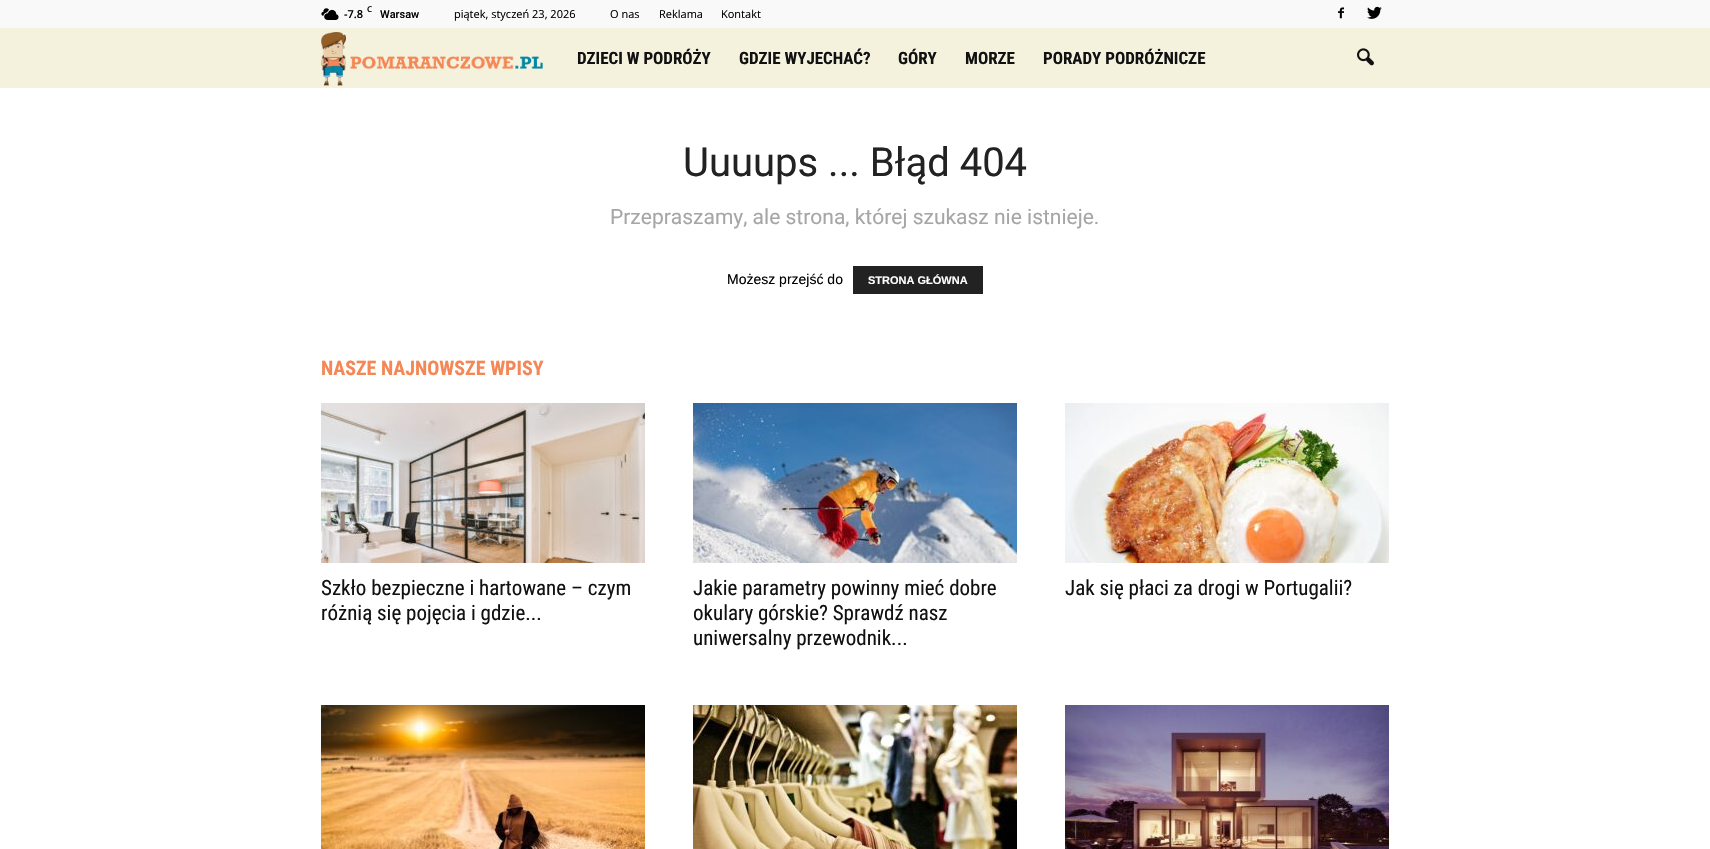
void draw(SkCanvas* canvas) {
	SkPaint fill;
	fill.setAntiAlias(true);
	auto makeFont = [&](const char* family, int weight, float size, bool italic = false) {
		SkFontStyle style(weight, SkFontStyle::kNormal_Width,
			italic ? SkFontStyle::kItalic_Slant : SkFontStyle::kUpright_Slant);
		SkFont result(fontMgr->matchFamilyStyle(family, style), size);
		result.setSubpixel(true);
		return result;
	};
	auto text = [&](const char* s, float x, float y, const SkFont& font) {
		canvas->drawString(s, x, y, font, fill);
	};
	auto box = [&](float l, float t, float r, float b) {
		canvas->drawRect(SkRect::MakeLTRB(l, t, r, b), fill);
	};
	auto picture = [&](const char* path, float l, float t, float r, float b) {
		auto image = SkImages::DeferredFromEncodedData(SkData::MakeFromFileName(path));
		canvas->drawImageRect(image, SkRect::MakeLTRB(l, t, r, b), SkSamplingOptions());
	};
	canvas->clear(0xFFFFFFFF);
	fill.setColor(0xFFF9F9F9);
	box(0, 0, 1710, 28);
	picture("image0.png", 321, 8, 339, 20);
	picture("image1.png", 1338, 7, 1344, 19);
	picture("image2.png", 1367, 6, 1382, 19);
	fill.setColor(0xFFF4F1DD);
	box(0, 28, 1710, 88);
	picture("image3.png", 321, 32, 543, 86);
	picture("image4.png", 1357, 48, 1374, 66);
	fill.setColor(0xFF222222);
	box(853, 266, 983, 294);
	picture("image5.png", 321, 403, 645, 563);
	picture("image6.png", 693, 403, 1017, 563);
	picture("image7.png", 1065, 403, 1389, 563);
	picture("image8.png", 321, 705, 645, 849);
	picture("image9.png", 693, 705, 1017, 849);
	picture("image10.png", 1065, 705, 1389, 849);
	auto font1 = makeFont("Open Sans", 600, 11);
	fill.setColor(0xFF000000);
	text("-7.8", 344, 18, font1);
	auto font2 = makeFont("Open Sans", 600, 8);
	text("C", 367, 12, font2);
	auto font3 = makeFont("Roboto", 500, 11);
	text("Warsaw", 380, 18, font3);
	auto font4 = makeFont("Open Sans", 400, 11);
	text("piątek, styczeń 23, 2026", 454, 18, font4);
	text("O nas", 610, 18, font4);
	text("Reklama", 659, 18, font4);
	text("Kontakt", 721, 18, font4);
	auto font5 = makeFont("Roboto Condensed", 700, 17);
	fill.setColor(0xFF111111);
	text("DZIECI W PODRÓŻY", 577, 64, font5);
	text("GDZIE WYJECHAĆ?", 739, 64, font5);
	text("GÓRY", 898, 64, font5);
	text("MORZE", 965, 64, font5);
	text("PORADY PODRÓŻNICZE", 1043, 64, font5);
	auto font6 = makeFont("Roboto", 400, 40);
	fill.setColor(0xFF222222);
	text("Uuuups ... Błąd 404", 683, 176, font6);
	auto font7 = makeFont("Roboto", 400, 21);
	fill.setColor(0xFFA6A6A6);
	text("Przepraszamy, ale strona, której szukasz nie istnieje.", 610, 224, font7);
	auto font8 = makeFont("Liberation Sans", 400, 14);
	fill.setColor(0xFF000000);
	text("Możesz przejść do", 727, 284, font8);
	auto font9 = makeFont("Liberation Sans", 700, 11);
	fill.setColor(0xFFFFFFFF);
	text("STRONA GŁÓWNA", 868, 284, font9);
	auto font10 = makeFont("Roboto Condensed", 700, 20);
	fill.setColor(0xFFF48755);
	text("NASZE NAJNOWSZE WPISY", 321, 375, font10);
	auto font11 = makeFont("Roboto Condensed", 400, 21);
	fill.setColor(0xFF111111);
	text("Szkło bezpieczne i hartowane – czym", 321, 595, font11);
	text("różnią się pojęcia i gdzie...", 321, 620, font11);
	text("Jakie parametry powinny mieć dobre", 693, 595, font11);
	text("okulary górskie? Sprawdź nasz", 693, 620, font11);
	text("uniwersalny przewodnik...", 693, 645, font11);
	text("Jak się płaci za drogi w Portugalii?", 1065, 595, font11);
}
